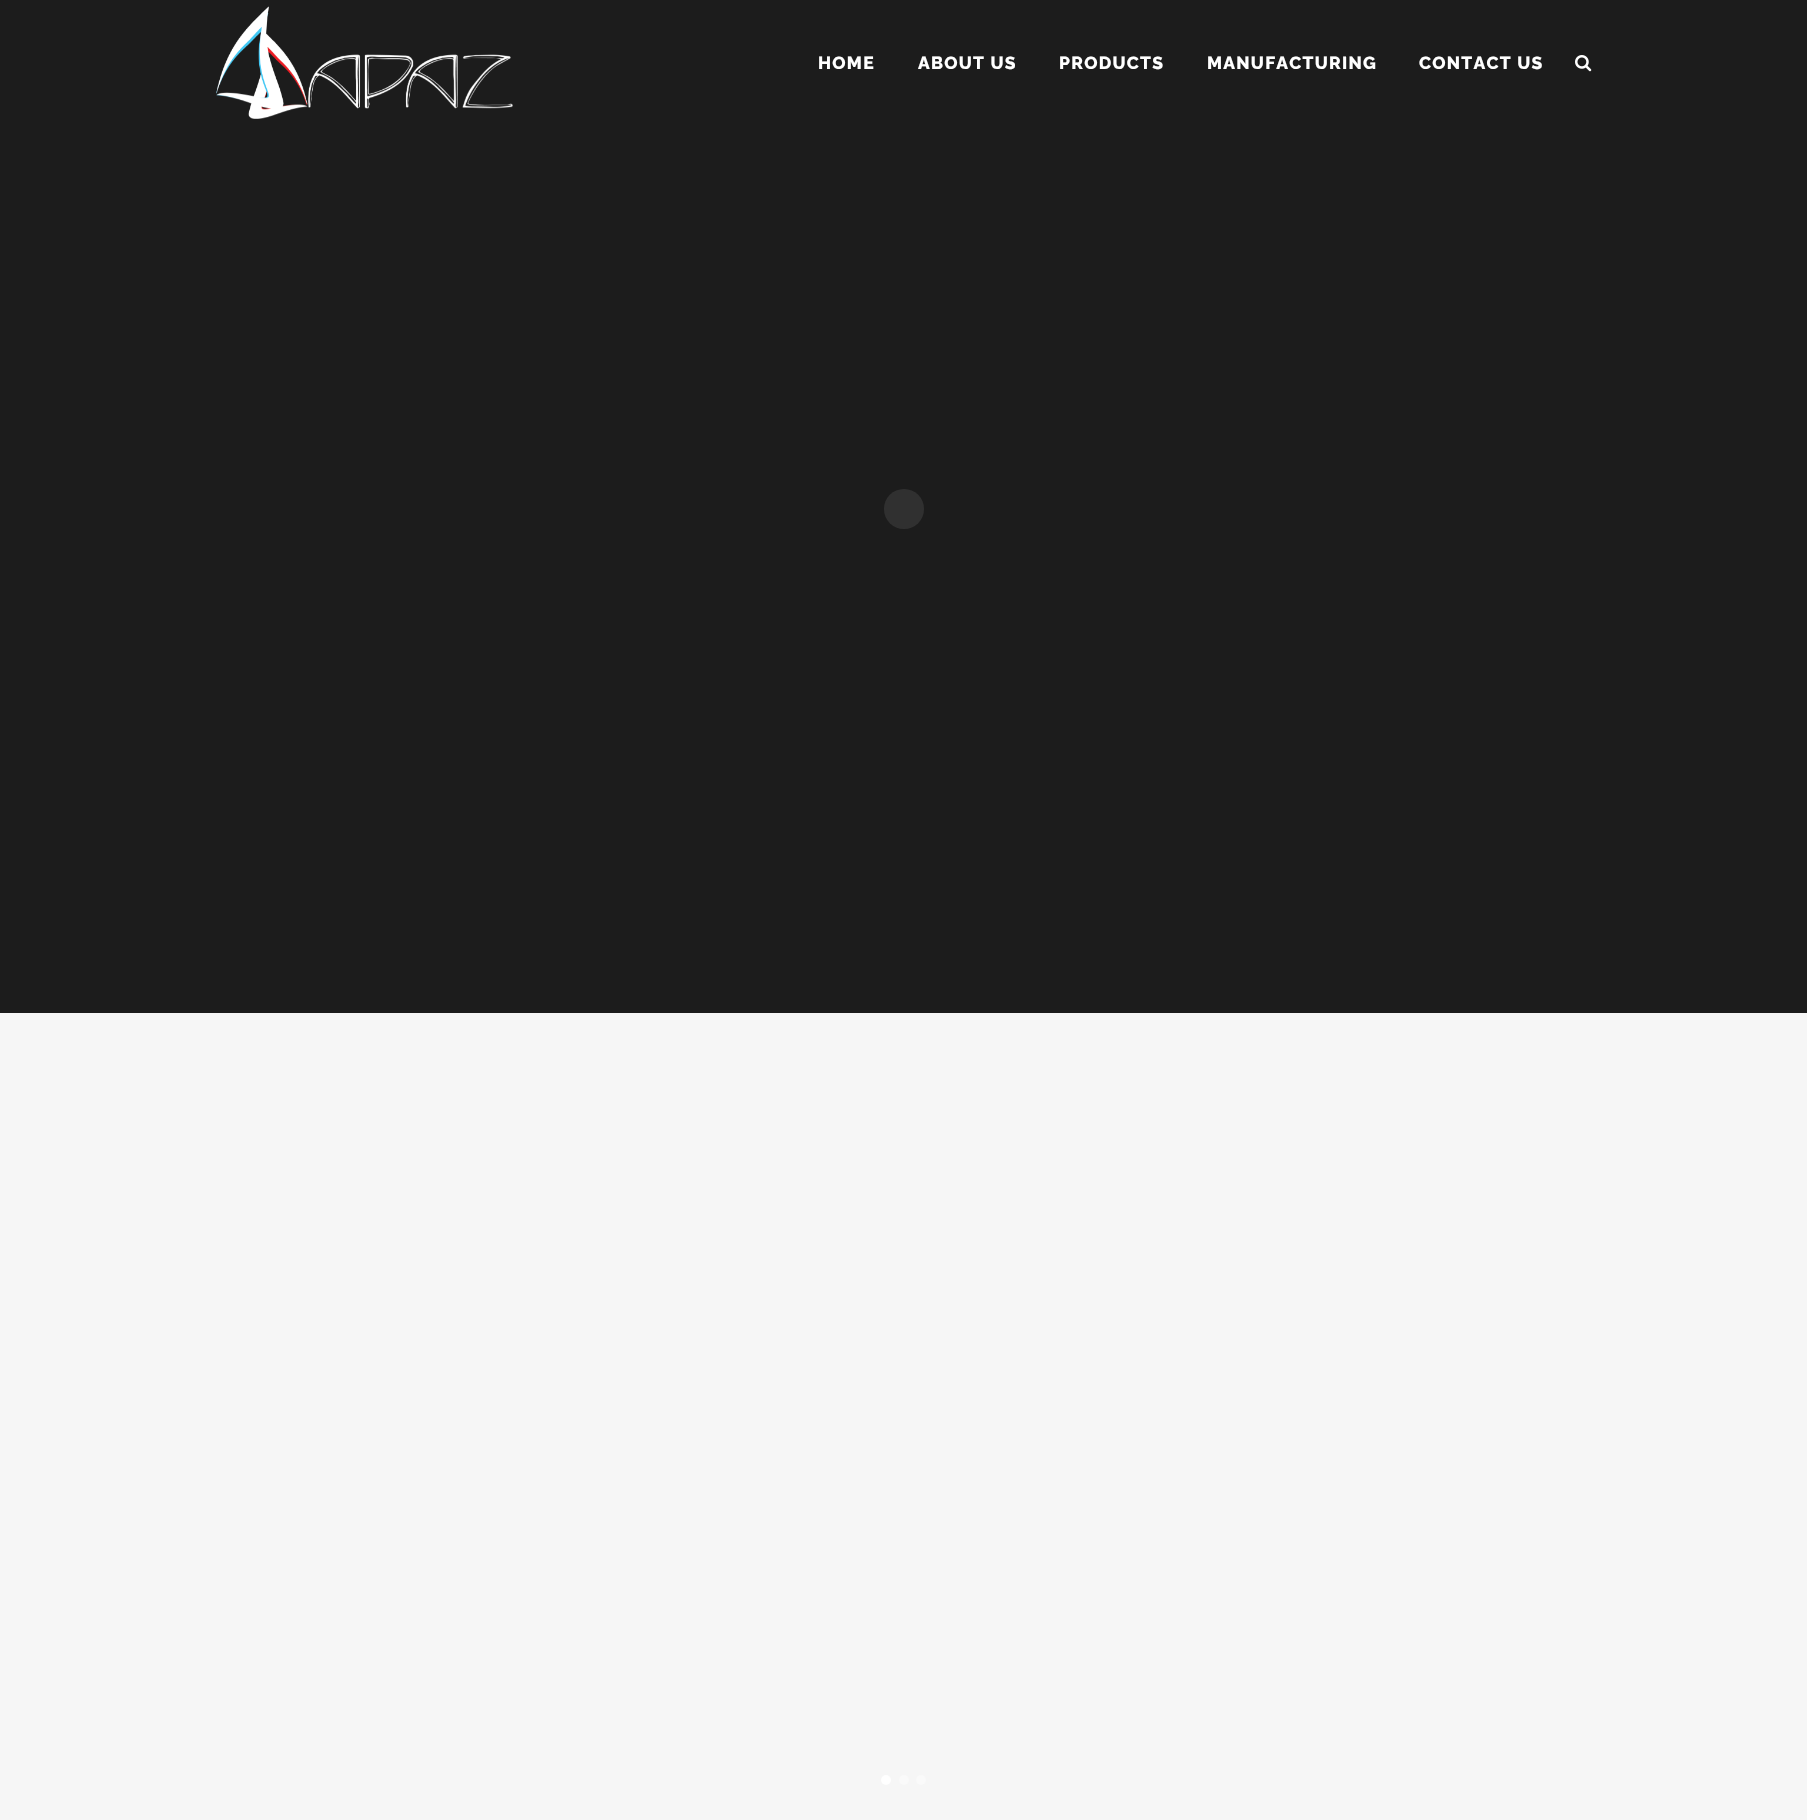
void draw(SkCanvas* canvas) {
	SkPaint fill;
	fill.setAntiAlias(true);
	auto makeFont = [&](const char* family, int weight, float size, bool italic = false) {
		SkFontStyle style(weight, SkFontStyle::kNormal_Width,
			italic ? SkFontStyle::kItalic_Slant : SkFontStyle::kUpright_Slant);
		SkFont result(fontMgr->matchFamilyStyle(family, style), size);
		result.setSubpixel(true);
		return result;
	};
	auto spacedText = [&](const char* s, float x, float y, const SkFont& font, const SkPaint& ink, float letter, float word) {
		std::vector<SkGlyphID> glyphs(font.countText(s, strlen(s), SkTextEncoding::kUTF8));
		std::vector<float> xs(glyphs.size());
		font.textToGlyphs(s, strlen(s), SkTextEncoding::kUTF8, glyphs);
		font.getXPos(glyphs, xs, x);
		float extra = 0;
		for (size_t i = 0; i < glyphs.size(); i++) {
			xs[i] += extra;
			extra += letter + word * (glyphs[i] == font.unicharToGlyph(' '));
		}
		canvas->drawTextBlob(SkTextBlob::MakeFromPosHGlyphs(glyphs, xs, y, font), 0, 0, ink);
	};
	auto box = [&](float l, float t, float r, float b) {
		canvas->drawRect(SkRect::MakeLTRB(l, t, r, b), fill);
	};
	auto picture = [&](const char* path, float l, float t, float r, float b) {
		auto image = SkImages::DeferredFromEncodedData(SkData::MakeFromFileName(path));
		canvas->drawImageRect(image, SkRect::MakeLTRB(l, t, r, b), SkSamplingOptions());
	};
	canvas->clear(0xFFF6F6F6);
	fill.setColor(0xFF1C1C1C);
	box(0, 0, 1807, 1013);
	fill.setColor(0xFF303030);
	canvas->drawCircle(904, 509, 20, fill);
	fill.setColor(0xFFFFFFFF);
	canvas->drawCircle(886, 1780, 5, fill);
	fill.setColor(0xFFFAFAFA);
	canvas->drawCircle(904, 1780, 5, fill);
	canvas->drawCircle(921, 1780, 5, fill);
	picture("image0.png", 216, 6, 513, 119);
	picture("image1.png", 1575, 55, 1592, 72);
	auto font1 = makeFont("Raleway", 800, 17.5f);
	fill.setColor(0xFFFFFFFF);
	spacedText("HOME", 818, 69, font1, fill, 1.25f, 0);
	spacedText("ABOUT US", 918, 69, font1, fill, 1.25f, 0);
	spacedText("PRODUCTS", 1059, 69, font1, fill, 1.25f, 0);
	spacedText("MANUFACTURING", 1207, 69, font1, fill, 1.25f, 0);
	spacedText("CONTACT US", 1419, 69, font1, fill, 1.25f, 0);
}
